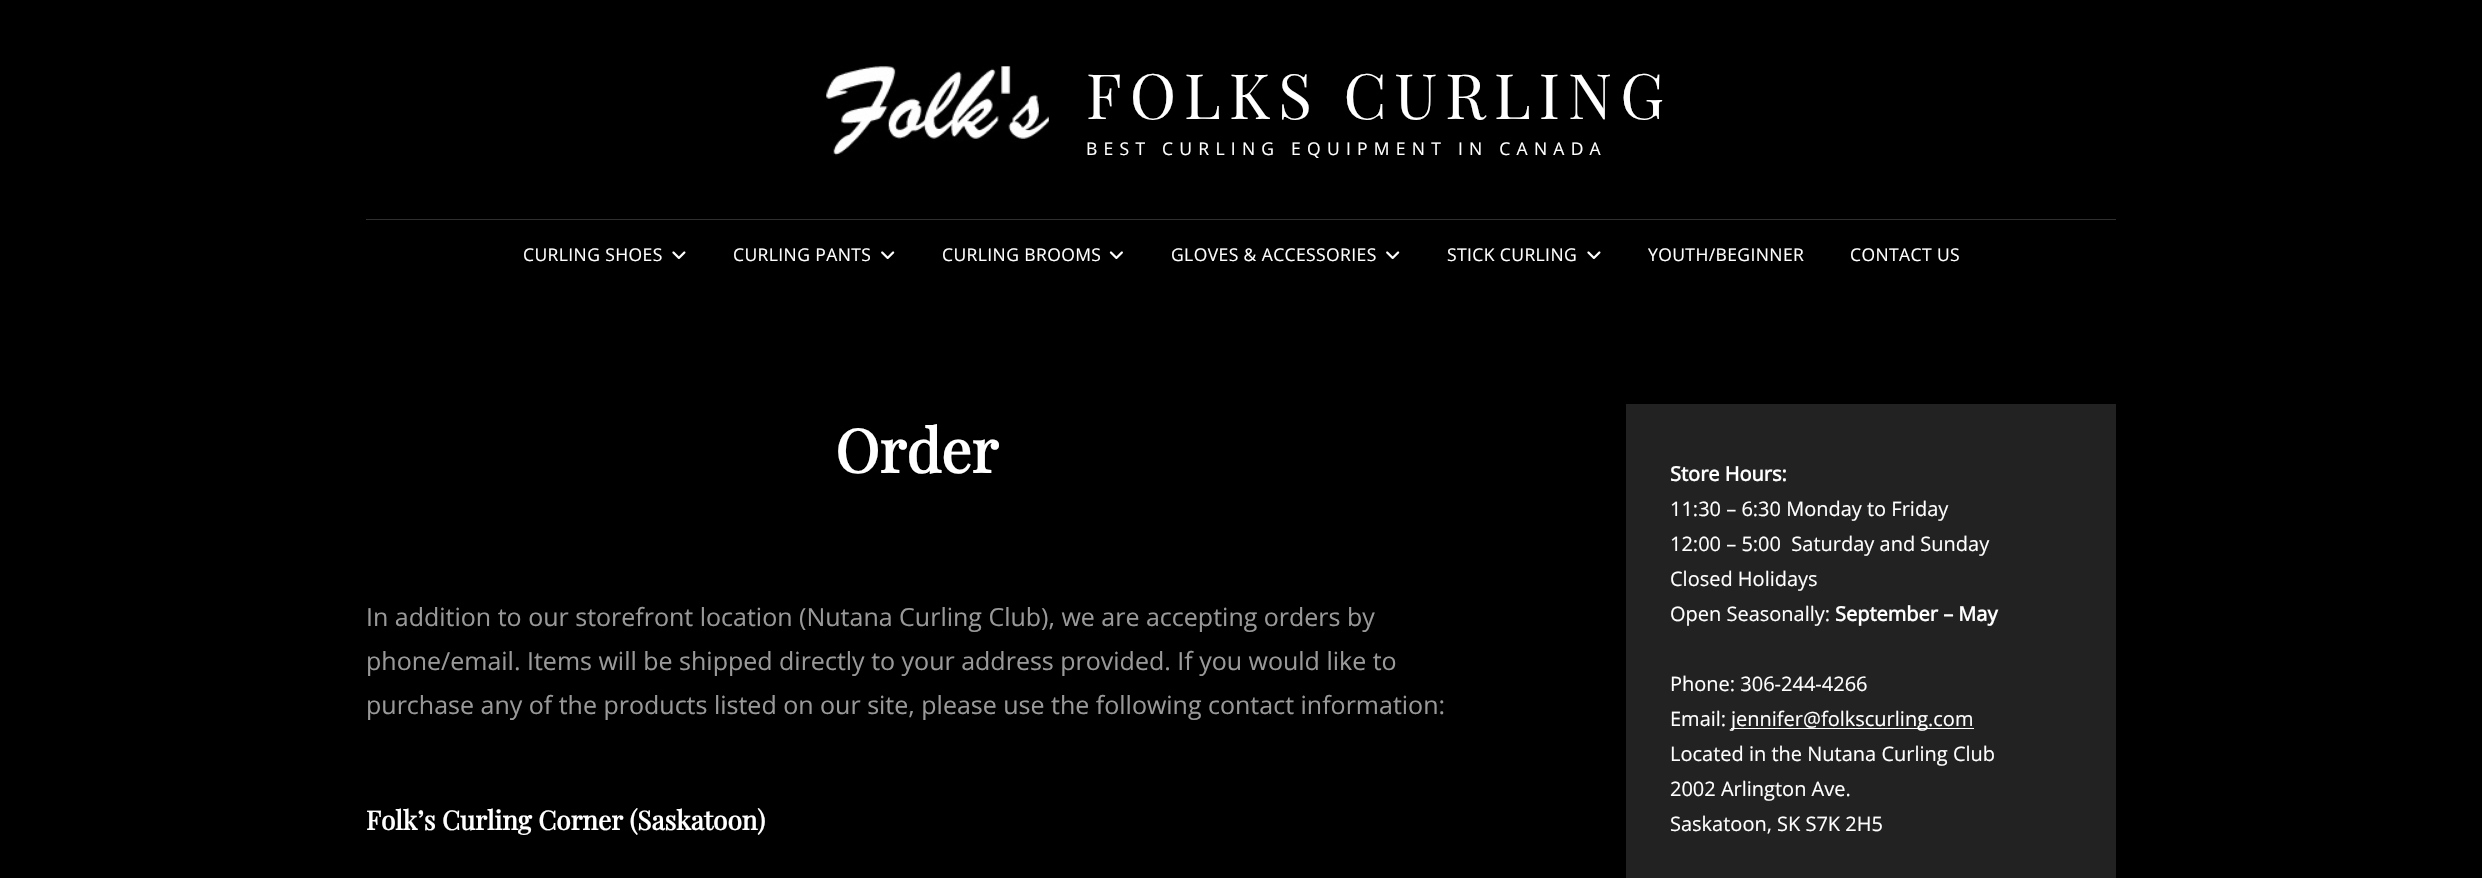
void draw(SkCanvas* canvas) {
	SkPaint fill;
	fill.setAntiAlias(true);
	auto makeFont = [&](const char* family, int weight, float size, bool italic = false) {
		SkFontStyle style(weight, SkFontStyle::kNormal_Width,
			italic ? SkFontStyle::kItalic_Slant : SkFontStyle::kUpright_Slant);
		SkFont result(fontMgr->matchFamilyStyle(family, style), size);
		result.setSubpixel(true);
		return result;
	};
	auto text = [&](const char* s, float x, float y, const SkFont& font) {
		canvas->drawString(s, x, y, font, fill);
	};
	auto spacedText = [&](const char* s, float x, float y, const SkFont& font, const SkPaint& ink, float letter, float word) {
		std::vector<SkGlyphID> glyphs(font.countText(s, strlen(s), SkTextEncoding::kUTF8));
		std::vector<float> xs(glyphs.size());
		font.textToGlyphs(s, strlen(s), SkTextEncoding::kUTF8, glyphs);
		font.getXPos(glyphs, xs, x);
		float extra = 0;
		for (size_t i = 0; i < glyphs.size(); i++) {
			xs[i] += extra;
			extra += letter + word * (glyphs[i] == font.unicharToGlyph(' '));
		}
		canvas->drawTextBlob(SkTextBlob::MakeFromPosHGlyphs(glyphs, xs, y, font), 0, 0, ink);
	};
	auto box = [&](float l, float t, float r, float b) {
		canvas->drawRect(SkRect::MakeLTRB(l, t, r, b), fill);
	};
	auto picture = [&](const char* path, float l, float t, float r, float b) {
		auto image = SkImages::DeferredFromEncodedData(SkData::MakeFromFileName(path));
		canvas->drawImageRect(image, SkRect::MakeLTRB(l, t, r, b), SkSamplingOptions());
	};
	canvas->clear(0xFF000000);
	picture("image0.png", 826, 66, 1049, 156);
	fill.setColor(0xFF2F2F2F);
	box(366, 219, 2116, 220);
	picture("image1.png", 672, 251, 686, 259);
	picture("image2.png", 881, 251, 895, 259);
	picture("image3.png", 1109, 251, 1123, 259);
	picture("image2.png", 1386, 251, 1400, 259);
	picture("image1.png", 1587, 251, 1601, 259);
	fill.setColor(0xFF222222);
	box(1626, 404, 2116, 878);
	fill.setColor(0xFFFFFFFF);
	box(1731, 728, 1974, 729);
	auto font1 = makeFont("Playfair Display", 400, 62.5f);
	spacedText("FOLKS CURLING", 1086, 119, font1, fill, 8.1f, 0);
	auto font2 = makeFont("Open Sans", 400, 17.5f);
	spacedText("BEST CURLING EQUIPMENT IN CANADA", 1086, 155, font2, fill, 6.25f, 0);
	spacedText("CURLING SHOES", 523, 261, font2, fill, 0.4f, 0);
	spacedText("CURLING PANTS", 733, 261, font2, fill, 0.4f, 0);
	spacedText("CURLING BROOMS", 942, 261, font2, fill, 0.4f, 0);
	spacedText("GLOVES & ACCESSORIES", 1171, 261, font2, fill, 0.4f, 0);
	spacedText("STICK CURLING", 1447, 261, font2, fill, 0.4f, 0);
	spacedText("YOUTH/BEGINNER", 1648, 261, font2, fill, 0.4f, 0);
	spacedText("CONTACT US", 1850, 261, font2, fill, 0.4f, 0);
	auto font3 = makeFont("Playfair Display", 700, 60);
	text("Order", 835, 473, font3);
	auto font4 = makeFont("Open Sans", 400, 25);
	fill.setColor(0xFF999999);
	text("In addition to our storefront location (Nutana Curling Club), we are accepting orders by", 366, 626, font4);
	text("phone/email. Items will be shipped directly to your address provided. If you would like to", 366, 670, font4);
	text("purchase any of the products listed on our site, please use the following contact information:", 366, 714, font4);
	auto font5 = makeFont("Playfair Display", 700, 26.25f);
	fill.setColor(0xFFFFFFFF);
	text("Folk’s Curling Corner (Saskatoon)", 366, 830, font5);
	auto font6 = makeFont("Open Sans", 700, 20);
	text("Store Hours:", 1670, 481, font6);
	auto font7 = makeFont("Open Sans", 400, 20);
	text("11:30 – 6:30 Monday to Friday", 1670, 516, font7);
	text("12:00 – 5:00  Saturday and Sunday", 1670, 551, font7);
	text("Closed Holidays", 1670, 586, font7);
	text("Open Seasonally:", 1670, 621, font7);
	text("September – May", 1835, 621, font6);
	text("Phone: 306-244-4266", 1670, 691, font7);
	text("Email:", 1670, 726, font7);
	text("jennifer@folkscurling.com", 1731, 726, font7);
	text("Located in the Nutana Curling Club", 1670, 761, font7);
	text("2002 Arlington Ave.", 1670, 796, font7);
	text("Saskatoon, SK S7K 2H5", 1670, 831, font7);
}
